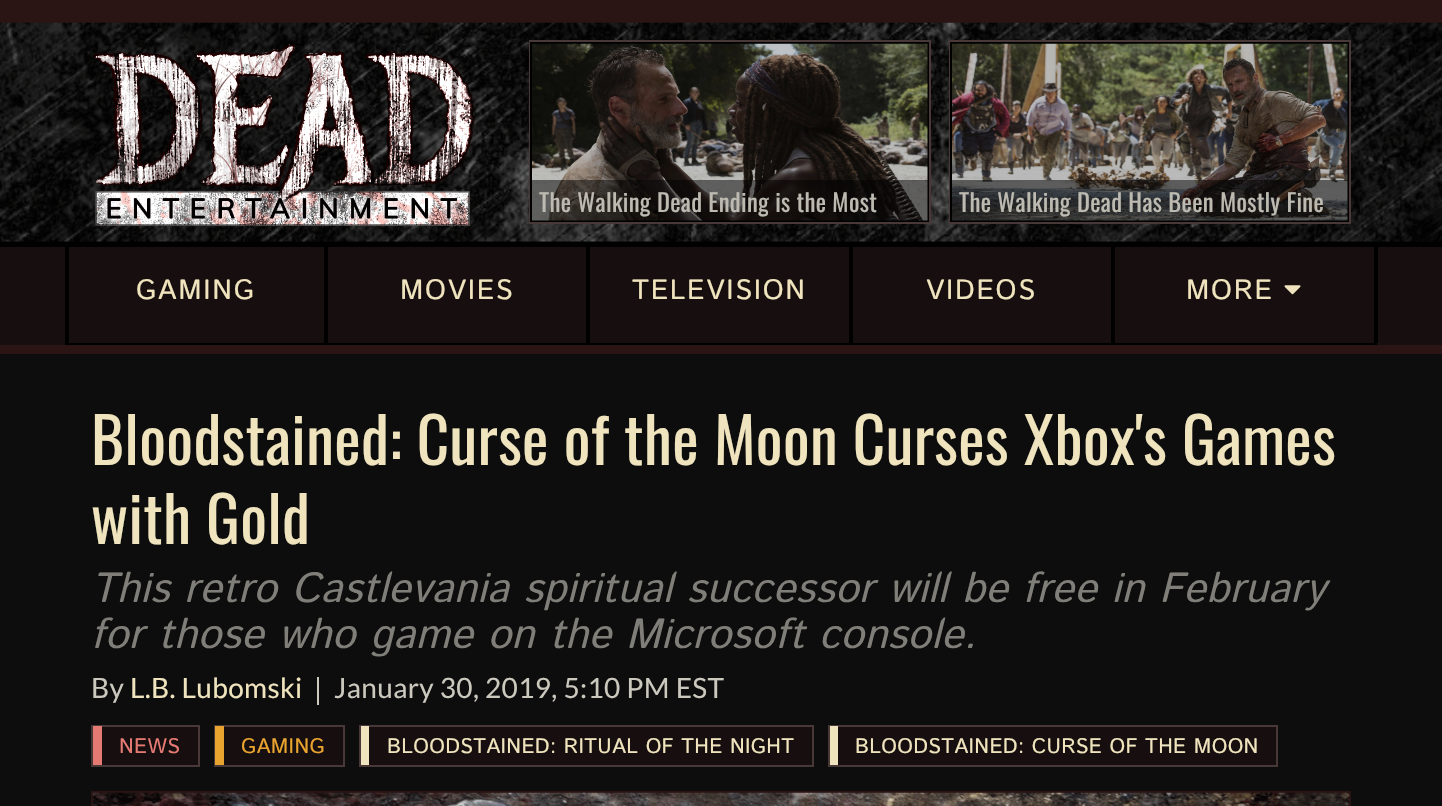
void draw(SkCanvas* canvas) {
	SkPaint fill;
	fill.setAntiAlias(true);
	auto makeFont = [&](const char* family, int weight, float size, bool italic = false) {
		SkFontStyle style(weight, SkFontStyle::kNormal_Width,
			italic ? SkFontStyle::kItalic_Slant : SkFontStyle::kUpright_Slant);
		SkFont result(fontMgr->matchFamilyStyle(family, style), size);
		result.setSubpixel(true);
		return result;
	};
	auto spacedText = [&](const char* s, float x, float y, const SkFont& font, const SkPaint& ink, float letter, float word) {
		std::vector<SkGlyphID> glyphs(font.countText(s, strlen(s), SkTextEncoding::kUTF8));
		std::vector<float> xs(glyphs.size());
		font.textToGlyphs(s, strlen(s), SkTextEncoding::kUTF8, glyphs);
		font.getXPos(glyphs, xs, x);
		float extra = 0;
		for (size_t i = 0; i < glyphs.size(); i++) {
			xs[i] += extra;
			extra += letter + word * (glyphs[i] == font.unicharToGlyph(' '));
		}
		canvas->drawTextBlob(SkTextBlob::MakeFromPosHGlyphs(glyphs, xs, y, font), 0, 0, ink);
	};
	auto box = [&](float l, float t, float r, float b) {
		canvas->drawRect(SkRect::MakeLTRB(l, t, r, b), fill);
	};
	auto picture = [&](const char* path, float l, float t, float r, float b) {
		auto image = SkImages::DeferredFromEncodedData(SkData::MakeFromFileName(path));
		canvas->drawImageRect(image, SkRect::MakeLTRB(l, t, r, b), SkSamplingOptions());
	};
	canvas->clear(0xFF0D0D0D);
	fill.setColor(0xFF2A1414);
	box(0, 0, 1442, 23);
	fill.setColor(0xFF010101);
	box(0, 241, 1442, 242);
	picture("image0.png", 0, 22, 1442, 242);
	picture("image1.png", 93, 44, 474, 227);
	fill.setStyle(SkPaint::kStroke_Style);
	fill.setStrokeWidth(2);
	fill.setColor(0xFF483838);
	canvas->drawRect(SkRect::MakeLTRB(530, 41, 930, 223), fill);
	fill.setColor(0xFF000000);
	canvas->drawRect(SkRect::MakeLTRB(531, 43, 928, 221), fill);
	picture("image2.png", 532, 43, 928, 221);
	fill.setStyle(SkPaint::kFill_Style);
	fill.setColor(0x80000000);
	box(532, 180, 928, 221);
	fill.setStyle(SkPaint::kStroke_Style);
	fill.setColor(0xFF483838);
	canvas->drawRect(SkRect::MakeLTRB(950, 41, 1350, 223), fill);
	fill.setColor(0xFF000000);
	canvas->drawRect(SkRect::MakeLTRB(951, 43, 1348, 221), fill);
	picture("image3.png", 952, 43, 1348, 221);
	fill.setStyle(SkPaint::kFill_Style);
	fill.setColor(0x80000000);
	box(952, 180, 1348, 221);
	fill.setColor(0xFF170F0F);
	box(0, 247, 1442, 345);
	fill.setColor(0xFF000000);
	box(0, 242, 1442, 247);
	fill.setColor(0xFF2A1414);
	box(0, 345, 1442, 354);
	fill.setColor(0xFF000000);
	box(65, 343, 1377, 345);
	box(324, 247, 328, 343);
	box(65, 247, 69, 343);
	box(586, 247, 590, 343);
	box(849, 247, 853, 343);
	box(1111, 247, 1115, 343);
	box(1374, 247, 1378, 343);
	picture("image4.png", 1284, 285, 1301, 295);
	fill.setColor(0xFFCBC8BE);
	box(317, 677, 319, 705);
	fill.setColor(0xFF170F0F);
	box(102, 727, 198, 765);
	fill.setStyle(SkPaint::kStroke_Style);
	fill.setColor(0xFF483838);
	canvas->drawRect(SkRect::MakeLTRB(92, 726, 199, 766), fill);
	fill.setStyle(SkPaint::kFill_Style);
	fill.setColor(0xFFE57A73);
	box(93, 726, 102, 765);
	fill.setColor(0xFF170F0F);
	box(224, 727, 343, 765);
	fill.setStyle(SkPaint::kStroke_Style);
	fill.setColor(0xFF483838);
	canvas->drawRect(SkRect::MakeLTRB(215, 726, 344, 766), fill);
	fill.setStyle(SkPaint::kFill_Style);
	fill.setColor(0xFFE8A42E);
	box(215, 726, 224, 765);
	fill.setColor(0xFF170F0F);
	box(369, 727, 812, 765);
	fill.setStyle(SkPaint::kStroke_Style);
	fill.setColor(0xFF483838);
	canvas->drawRect(SkRect::MakeLTRB(360, 726, 813, 766), fill);
	fill.setStyle(SkPaint::kFill_Style);
	fill.setColor(0xFFEFE4BD);
	box(361, 726, 369, 765);
	fill.setColor(0xFF170F0F);
	box(838, 727, 1276, 765);
	fill.setStyle(SkPaint::kStroke_Style);
	fill.setColor(0xFF483838);
	canvas->drawRect(SkRect::MakeLTRB(829, 726, 1277, 766), fill);
	fill.setStyle(SkPaint::kFill_Style);
	fill.setColor(0xFFEFE4BD);
	box(830, 726, 838, 765);
	fill.setStyle(SkPaint::kStroke_Style);
	fill.setColor(0xFF2A1414);
	canvas->drawRect(SkRect::MakeLTRB(92, 792, 1350, 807), fill);
	picture("image5.png", 92, 792, 1350, 806);
	auto font1 = makeFont("Oswald", 400, 24.5f);
	fill.setStyle(SkPaint::kFill_Style);
	fill.setColor(0xFFEDEADE);
	spacedText("The Walking Dead Ending is the Most", 539, 212, font1, fill, 0.35f, 0);
	fill.setColor(0x33000000);
	box(532, 43, 928, 221);
	fill.setColor(0xFFEDEADE);
	spacedText("The Walking Dead Has Been Mostly Fine", 959, 212, font1, fill, 0.35f, 0);
	fill.setColor(0x33000000);
	box(952, 43, 1348, 221);
	auto font2 = makeFont("Istok Web", 400, 28);
	fill.setColor(0xFFEFE4BD);
	spacedText("GAMING", 136, 299, font2, fill, 1.75f, 0);
	spacedText("MOVIES", 400, 299, font2, fill, 1.75f, 0);
	spacedText("TELEVISION", 632, 299, font2, fill, 1.75f, 0);
	spacedText("VIDEOS", 926, 299, font2, fill, 1.75f, 0);
	spacedText("MORE", 1186, 299, font2, fill, 1.75f, 0);
	auto font3 = makeFont("Oswald", 400, 63);
	spacedText("Bloodstained: Curse of the Moon Curses Xbox's Games", 91, 465, font3, fill, 0.35f, 0);
	spacedText("with Gold", 91, 544, font3, fill, 0.35f, 0);
	auto font4 = makeFont("Istok Web", 400, 42, true);
	fill.setColor(0xFF807E78);
	spacedText("This retro Castlevania spiritual successor will be free in February", 91, 602, font4, fill, 0.35f, 0);
	spacedText("for those who game on the Microsoft console.", 91, 648, font4, fill, 0.35f, 0);
	auto font5 = makeFont("Lato", 400, 28);
	fill.setColor(0xFFCBC8BE);
	spacedText("By", 91, 698, font5, fill, 0.35f, 0);
	fill.setColor(0xFFEFE4BD);
	spacedText("L.B. Lubomski", 130, 698, font5, fill, 0.35f, 0);
	fill.setColor(0xFFCBC8BE);
	spacedText("January 30, 2019, 5:10 PM EST", 334, 698, font5, fill, 0.35f, 0);
	auto font6 = makeFont("Istok Web", 400, 21);
	fill.setColor(0xFFE57A73);
	spacedText("NEWS", 119, 753, font6, fill, 0.35f, 0);
	fill.setColor(0xFFE8A42E);
	spacedText("GAMING", 241, 753, font6, fill, 0.35f, 0);
	fill.setColor(0xFFEFE4BD);
	spacedText("BLOODSTAINED: RITUAL OF THE NIGHT", 387, 753, font6, fill, 0.35f, 0);
	spacedText("BLOODSTAINED: CURSE OF THE MOON", 855, 753, font6, fill, 0.35f, 0);
}
